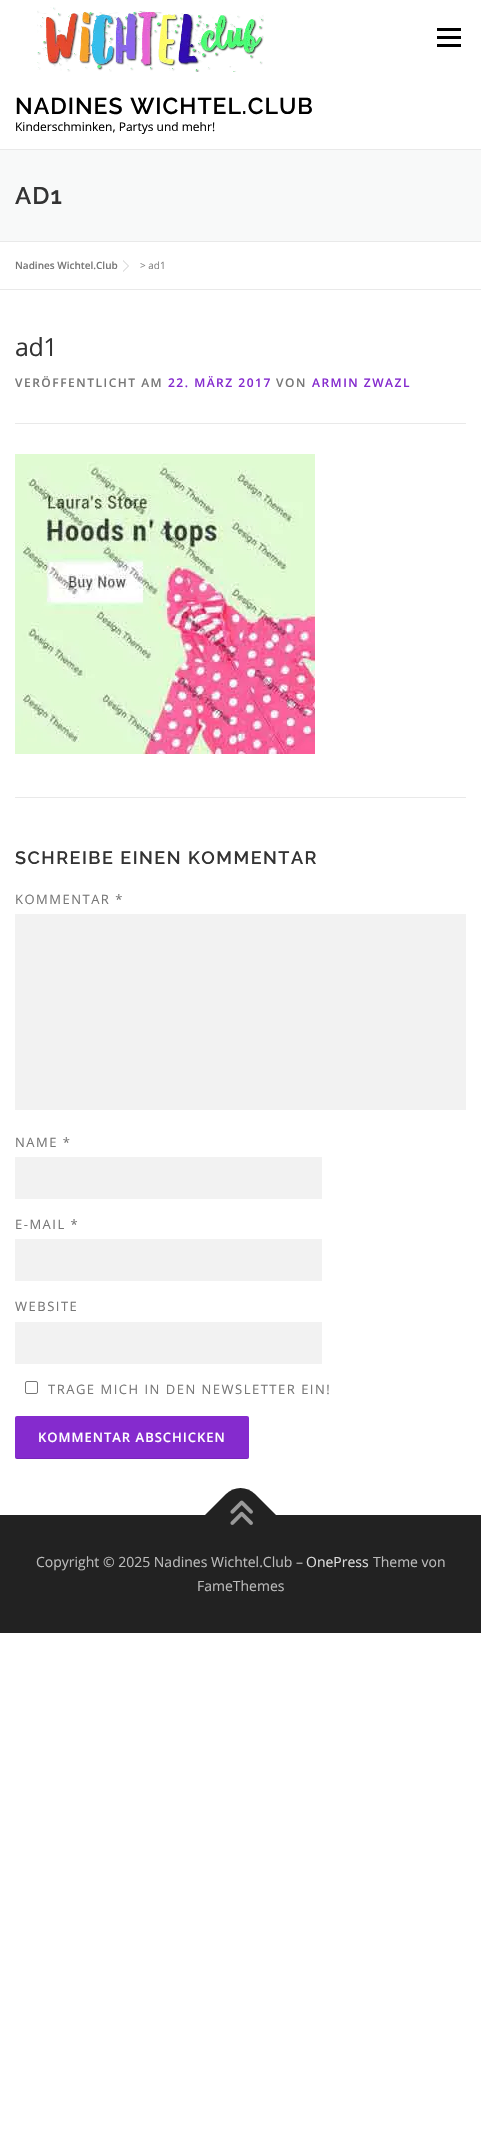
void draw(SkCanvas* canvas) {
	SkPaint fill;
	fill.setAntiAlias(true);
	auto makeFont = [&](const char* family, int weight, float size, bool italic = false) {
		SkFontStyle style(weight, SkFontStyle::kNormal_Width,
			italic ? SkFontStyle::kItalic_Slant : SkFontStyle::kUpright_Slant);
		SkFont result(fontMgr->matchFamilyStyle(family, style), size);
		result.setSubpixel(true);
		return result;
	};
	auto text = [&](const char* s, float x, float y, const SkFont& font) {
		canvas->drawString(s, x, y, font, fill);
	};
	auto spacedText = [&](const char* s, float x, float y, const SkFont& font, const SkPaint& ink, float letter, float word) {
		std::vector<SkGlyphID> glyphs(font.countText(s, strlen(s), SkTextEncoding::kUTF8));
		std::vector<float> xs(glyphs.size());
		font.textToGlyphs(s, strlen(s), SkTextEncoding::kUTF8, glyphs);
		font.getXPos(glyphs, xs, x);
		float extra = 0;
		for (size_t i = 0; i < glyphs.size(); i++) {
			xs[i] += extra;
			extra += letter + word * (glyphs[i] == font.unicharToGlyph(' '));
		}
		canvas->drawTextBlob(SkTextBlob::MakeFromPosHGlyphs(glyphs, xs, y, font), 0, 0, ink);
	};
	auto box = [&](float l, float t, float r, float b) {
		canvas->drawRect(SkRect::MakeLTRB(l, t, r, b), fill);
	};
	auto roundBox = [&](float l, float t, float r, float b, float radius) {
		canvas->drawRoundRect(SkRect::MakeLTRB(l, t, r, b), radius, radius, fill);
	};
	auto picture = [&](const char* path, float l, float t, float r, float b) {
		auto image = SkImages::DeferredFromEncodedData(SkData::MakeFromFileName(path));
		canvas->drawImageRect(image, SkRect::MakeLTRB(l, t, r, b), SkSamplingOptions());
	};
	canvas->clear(0xFFFFFFFF);
	fill.setColor(0xFF000000);
	box(437, 36, 461, 39);
	box(437, 28, 461, 31);
	box(437, 44, 461, 47);
	picture("image0.png", 37, 7, 264, 72);
	fill.setColor(0xFFF8F9F9);
	box(0, 150, 481, 241);
	fill.setColor(0xFFE9E9E9);
	box(0, 149, 481, 150);
	box(0, 241, 481, 242);
	box(0, 289, 481, 290);
	fill.setColor(0xFFCCCCCC);
	canvas->drawPath(SkPathBuilder().moveTo(123, 272).lineTo(123, 260).lineTo(129, 266).close().detach(), fill);
	fill.setColor(0xFFFFFFFF);
	canvas->drawPath(SkPathBuilder().moveTo(123, 271).lineTo(123, 261).lineTo(128, 266).close().detach(), fill);
	fill.setColor(0xFFE9E9E9);
	box(15, 423, 466, 424);
	picture("image1.png", 15, 454, 315, 754);
	box(15, 797, 466, 798);
	fill.setColor(0xFFF2F2F2);
	box(15, 914, 466, 1110);
	box(15, 1157, 322, 1199);
	box(15, 1239, 322, 1281);
	box(15, 1322, 322, 1364);
	fill.setStyle(SkPaint::kStroke_Style);
	fill.setStrokeWidth(1);
	fill.setColor(0xFF767676);
	canvas->drawRoundRect(SkRect::MakeLTRB(25.5f, 1381.5f, 37.5f, 1393.5f), 1.5f, 1.5f, fill);
	fill.setStyle(SkPaint::kFill_Style);
	fill.setColor(0xFF852BCE);
	roundBox(15, 1416, 249, 1459, 2);
	fill.setColor(0x1A000000);
	canvas->drawPath(SkPathBuilder().moveTo(15, 1456).cubicTo(15, 1457, 15, 1459, 17, 1459).lineTo(247, 1459).lineTo(249, 1458).lineTo(249, 1456).cubicTo(249, 1457, 248, 1458, 247, 1458).lineTo(17, 1458).cubicTo(16, 1458, 15, 1457, 15, 1456).close().detach(), fill);
	fill.setColor(0xFF222222);
	box(0, 1515, 481, 1633);
	canvas->drawPath(SkPathBuilder().moveTo(205, 1515).lineTo(226, 1494).cubicTo(234, 1486, 247, 1486, 255, 1494).lineTo(276, 1515).lineTo(240, 1550).close().detach(), fill);
	picture("image2.png", 230, 1500, 253, 1525);
	auto font1 = makeFont("Raleway", 600, 23);
	fill.setColor(0xFF000000);
	spacedText("NADINES WICHTEL.CLUB", 15, 114, font1, fill, 1, 0);
	auto font2 = makeFont("Open Sans", 400, 12);
	text("Kinderschminken, Partys und mehr!", 15, 131, font2);
	auto font3 = makeFont("Raleway", 600, 24);
	fill.setColor(0xFF333333);
	spacedText("AD1", 15, 204, font3, fill, 1, 0);
	auto font4 = makeFont("Open Sans", 600, 10);
	fill.setColor(0xFF777777);
	text("Nadines Wichtel.Club", 15, 269, font4);
	auto font5 = makeFont("Open Sans", 400, 10);
	fill.setColor(0xFF858585);
	text("> ad1", 140, 269, font5);
	auto font6 = makeFont("Open Sans", 400, 25);
	fill.setColor(0xFF333333);
	spacedText("ad1", 15, 356, font6, fill, -0.5f, 0);
	auto font7 = makeFont("Open Sans", 600, 12);
	fill.setColor(0xFF777777);
	spacedText("VERÖFFENTLICHT AM", 15, 387, font7, fill, 1.5f, 0);
	fill.setColor(0xFF852BCE);
	spacedText("22. MÄRZ 2017", 168, 387, font7, fill, 1.5f, 0);
	fill.setColor(0xFF777777);
	spacedText("VON", 276, 387, font7, fill, 1.5f, 0);
	fill.setColor(0xFF852BCE);
	spacedText("ARMIN ZWAZL", 312, 387, font7, fill, 1.5f, 0);
	auto font8 = makeFont("Raleway", 600, 18);
	fill.setColor(0xFF333333);
	spacedText("SCHREIBE EINEN KOMMENTAR", 15, 864, font8, fill, 1.5f, 0);
	auto font9 = makeFont("Open Sans", 400, 13);
	fill.setColor(0xFF777777);
	spacedText("KOMMENTAR *", 15, 904, font9, fill, 1.5f, 0);
	spacedText("NAME *", 15, 1147, font9, fill, 1.5f, 0);
	spacedText("E-MAIL *", 15, 1229, font9, fill, 1.5f, 0);
	spacedText("WEBSITE", 15, 1311, font9, fill, 1.5f, 0);
	spacedText("TRAGE MICH IN DEN NEWSLETTER EIN!", 48, 1394, font9, fill, 1.5f, 0);
	auto font10 = makeFont("Open Sans", 600, 13);
	fill.setColor(0xFFFFFFFF);
	spacedText("KOMMENTAR ABSCHICKEN", 38, 1442, font10, fill, 1, 0);
	auto font11 = makeFont("Open Sans", 400, 14);
	fill.setColor(0xFFBBBBBB);
	text("Copyright © 2025 Nadines Wichtel.Club –", 36, 1567, font11);
	fill.setColor(0xFFDDDDDD);
	text("OnePress", 306, 1567, font11);
	fill.setColor(0xFFBBBBBB);
	text("Theme von", 373, 1567, font11);
	text("FameThemes", 197, 1591, font11);
}
